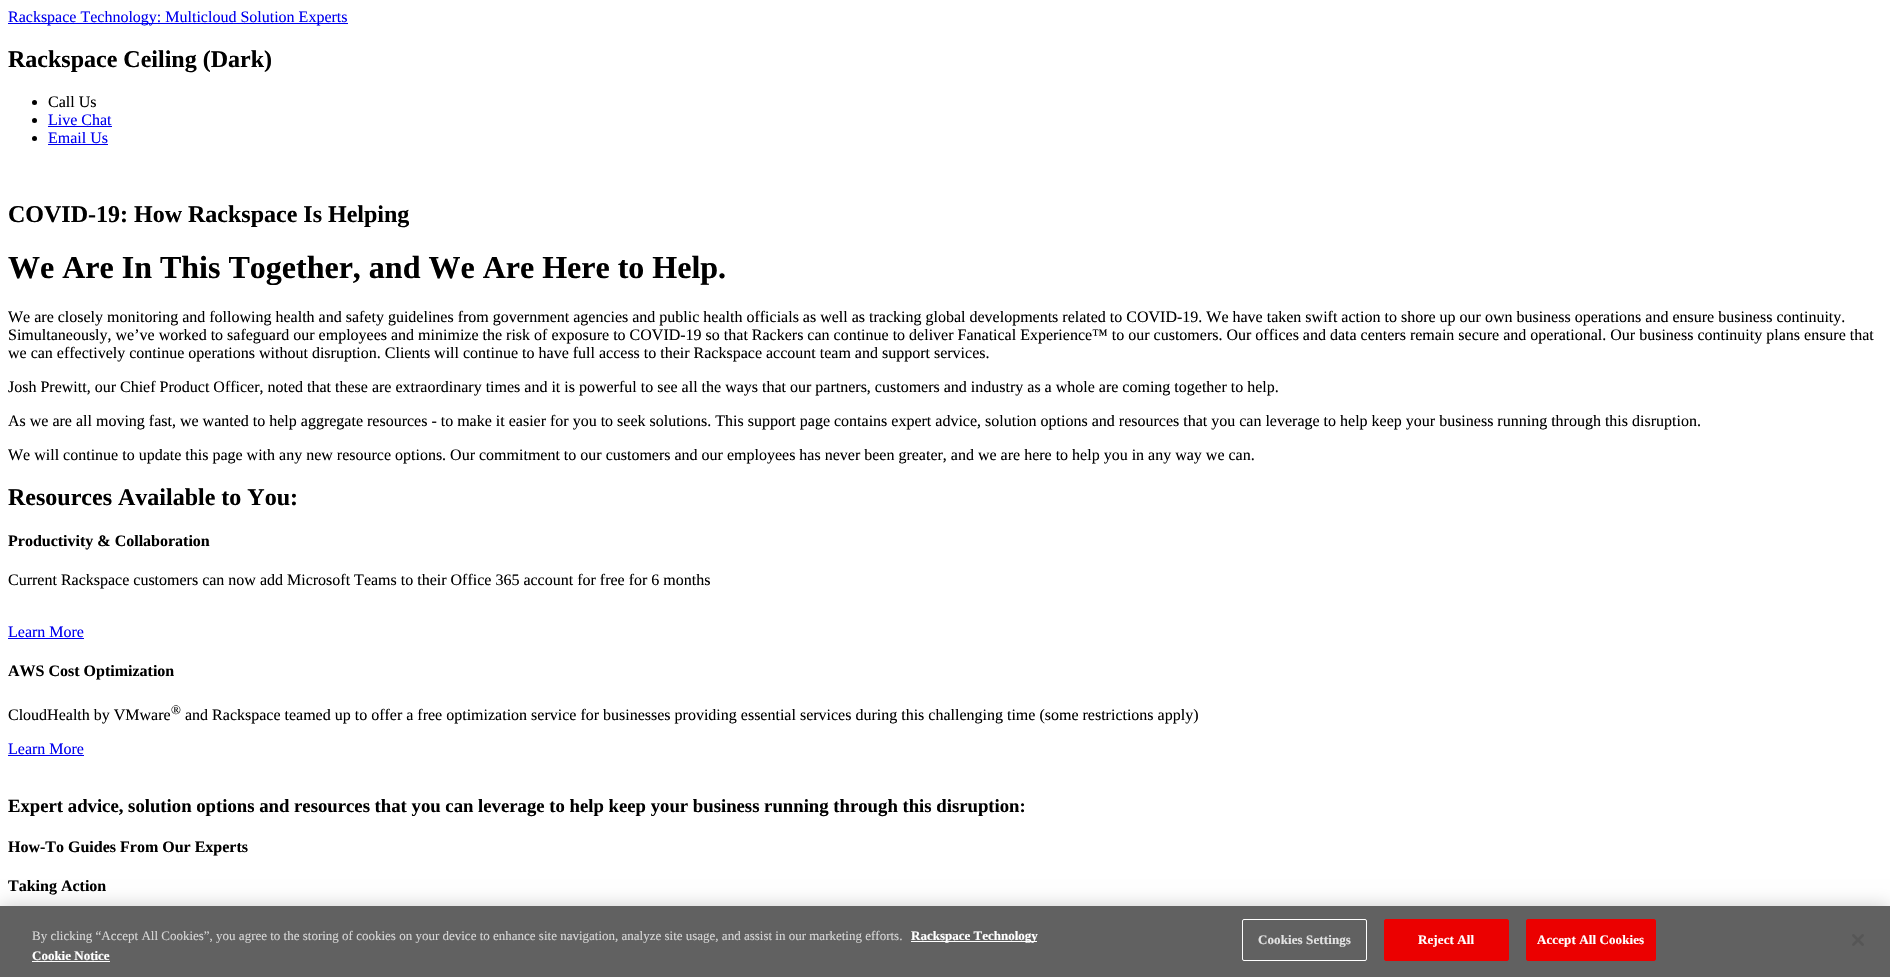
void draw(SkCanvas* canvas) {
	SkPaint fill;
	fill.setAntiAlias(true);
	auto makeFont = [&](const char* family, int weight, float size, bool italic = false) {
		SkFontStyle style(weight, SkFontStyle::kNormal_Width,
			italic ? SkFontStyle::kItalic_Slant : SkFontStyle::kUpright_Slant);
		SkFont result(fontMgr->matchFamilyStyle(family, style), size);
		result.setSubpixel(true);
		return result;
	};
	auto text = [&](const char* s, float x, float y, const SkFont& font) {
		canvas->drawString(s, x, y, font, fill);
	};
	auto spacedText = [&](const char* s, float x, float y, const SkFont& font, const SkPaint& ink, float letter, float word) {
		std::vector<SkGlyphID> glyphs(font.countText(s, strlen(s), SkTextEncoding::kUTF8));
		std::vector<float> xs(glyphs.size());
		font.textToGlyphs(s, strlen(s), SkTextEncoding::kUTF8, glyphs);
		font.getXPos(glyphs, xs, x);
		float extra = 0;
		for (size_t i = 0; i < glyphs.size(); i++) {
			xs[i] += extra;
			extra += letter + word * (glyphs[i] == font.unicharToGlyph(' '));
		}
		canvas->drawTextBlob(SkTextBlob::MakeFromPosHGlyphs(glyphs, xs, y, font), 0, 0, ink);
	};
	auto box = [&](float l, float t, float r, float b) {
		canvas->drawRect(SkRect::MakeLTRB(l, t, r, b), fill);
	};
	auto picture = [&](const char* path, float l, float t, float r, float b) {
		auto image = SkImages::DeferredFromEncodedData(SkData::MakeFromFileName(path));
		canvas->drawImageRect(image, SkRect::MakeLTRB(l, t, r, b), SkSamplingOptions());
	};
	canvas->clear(0xFFFFFFFF);
	fill.setColor(0xFF0000EE);
	box(8, 23, 348, 24);
	fill.setColor(0xFF000000);
	canvas->drawCircle(34.5f, 102.5f, 2.5f, fill);
	canvas->drawCircle(34.5f, 120.5f, 2.5f, fill);
	fill.setColor(0xFF0000EE);
	box(48, 126, 112, 127);
	fill.setColor(0xFF000000);
	canvas->drawCircle(34.5f, 138.5f, 2.5f, fill);
	fill.setColor(0xFF0000EE);
	box(48, 144, 108, 145);
	box(8, 638, 84, 639);
	box(8, 755, 84, 756);
	fill.setColor(0x33000000);
	fill.setMaskFilter(SkMaskFilter::MakeBlur(kNormal_SkBlurStyle, 9));
	canvas->drawRect(SkRect::MakeLTRB(0, 906, 1890, 977), fill);
	fill.setMaskFilter(nullptr);
	fill.setColor(0xFF616161);
	box(0, 906, 1890, 977);
	fill.setColor(0xFFFFFFFF);
	box(911, 941, 1037, 942);
	box(32, 961, 110, 962);
	fill.setStyle(SkPaint::kStroke_Style);
	fill.setStrokeWidth(1);
	canvas->drawRoundRect(SkRect::MakeLTRB(1242.5f, 919.5f, 1366.5f, 960.5f), 1.5f, 1.5f, fill);
	fill.setStyle(SkPaint::kFill_Style);
	fill.setColor(0xFFEB0000);
	canvas->drawRoundRect(SkRect::MakeLTRB(1384.5f, 919.5f, 1508.5f, 960.5f), 1.5f, 1.5f, fill);
	fill.setStyle(SkPaint::kStroke_Style);
	canvas->drawRoundRect(SkRect::MakeLTRB(1384.5f, 919.5f, 1508.5f, 960.5f), 1.5f, 1.5f, fill);
	fill.setStyle(SkPaint::kFill_Style);
	canvas->drawRoundRect(SkRect::MakeLTRB(1526.5f, 919.5f, 1655.5f, 960.5f), 1.5f, 1.5f, fill);
	fill.setStyle(SkPaint::kStroke_Style);
	canvas->drawRoundRect(SkRect::MakeLTRB(1526.5f, 919.5f, 1655.5f, 960.5f), 1.5f, 1.5f, fill);
	picture("image0.png", 1852, 934, 1864, 946);
	auto font1 = makeFont("Liberation Serif", 400, 16);
	fill.setStyle(SkPaint::kFill_Style);
	fill.setColor(0xFF0000EE);
	text("Rackspace Technology: Multicloud Solution Experts", 8, 22, font1);
	auto font2 = makeFont("Liberation Serif", 700, 24);
	fill.setColor(0xFF000000);
	text("Rackspace Ceiling (Dark)", 8, 67, font2);
	text("Call Us", 48, 107, font1);
	fill.setColor(0xFF0000EE);
	text("Live Chat", 48, 125, font1);
	text("Email Us", 48, 143, font1);
	fill.setColor(0xFF000000);
	text("COVID-19: How Rackspace Is Helping", 8, 222, font2);
	auto font3 = makeFont("Liberation Serif", 700, 32);
	text("We Are In This Together, and We Are Here to Help.", 8, 278, font3);
	text("We are closely monitoring and following health and safety guidelines from government agencies and public health officials as well as tracking global developments related to COVID-19. We have taken swift action to shore up our own business operations and ensure business continuity.", 8, 322, font1);
	text("Simultaneously, we’ve worked to safeguard our employees and minimize the risk of exposure to COVID-19 so that Rackers can continue to deliver Fanatical Experience™ to our customers. Our offices and data centers remain secure and operational. Our business continuity plans ensure that", 8, 340, font1);
	text("we can effectively continue operations without disruption. Clients will continue to have full access to their Rackspace account team and support services.", 8, 358, font1);
	text("Josh Prewitt, our Chief Product Officer, noted that these are extraordinary times and it is powerful to see all the ways that our partners, customers and industry as a whole are coming together to help.", 8, 392, font1);
	text("As we are all moving fast, we wanted to help aggregate resources - to make it easier for you to seek solutions. This support page contains expert advice, solution options and resources that you can leverage to help keep your business running through this disruption.", 8, 426, font1);
	text("We will continue to update this page with any new resource options. Our commitment to our customers and our employees has never been greater, and we are here to help you in any way we can.", 8, 460, font1);
	text("Resources Available to You:", 8, 505, font2);
	auto font4 = makeFont("Liberation Serif", 700, 16);
	text("Productivity & Collaboration", 8, 546, font4);
	text("Current Rackspace customers can now add Microsoft Teams to their Office 365 account for free for 6 months", 8, 585, font1);
	fill.setColor(0xFF0000EE);
	text("Learn More", 8, 637, font1);
	fill.setColor(0xFF000000);
	text("AWS Cost Optimization", 8, 676, font4);
	text("CloudHealth by VMware", 8, 720, font1);
	auto font5 = makeFont("Liberation Serif", 400, 13);
	text("®", 171, 714, font5);
	text("and Rackspace teamed up to offer a free optimization service for businesses providing essential services during this challenging time (some restrictions apply)", 185, 720, font1);
	fill.setColor(0xFF0000EE);
	text("Learn More", 8, 754, font1);
	auto font6 = makeFont("Liberation Serif", 700, 18.72f);
	fill.setColor(0xFF000000);
	text("Expert advice, solution options and resources that you can leverage to help keep your business running through this disruption:", 8, 812, font6);
	text("How-To Guides From Our Experts", 8, 852, font4);
	text("Taking Action", 8, 891, font4);
	fill.setColor(0xFFD6D6D6);
	text("By clicking “Accept All Cookies”, you agree to the storing of cookies on your device to enhance site navigation, analyze site usage, and assist in our marketing efforts.", 32, 940, font5);
	auto font7 = makeFont("Liberation Serif", 700, 13);
	fill.setColor(0xFFFFFFFF);
	text("Rackspace Technology", 911, 940, font7);
	text("Cookie Notice", 32, 960, font7);
	fill.setColor(0xFFE2E2E2);
	spacedText("Cookies Settings", 1258, 944, font7, fill, 0.1f, 0);
	fill.setColor(0xFFFFFFFF);
	spacedText("Reject All", 1418, 944, font7, fill, 0.1f, 0);
	spacedText("Accept All Cookies", 1537, 944, font7, fill, 0.1f, 0);
}
